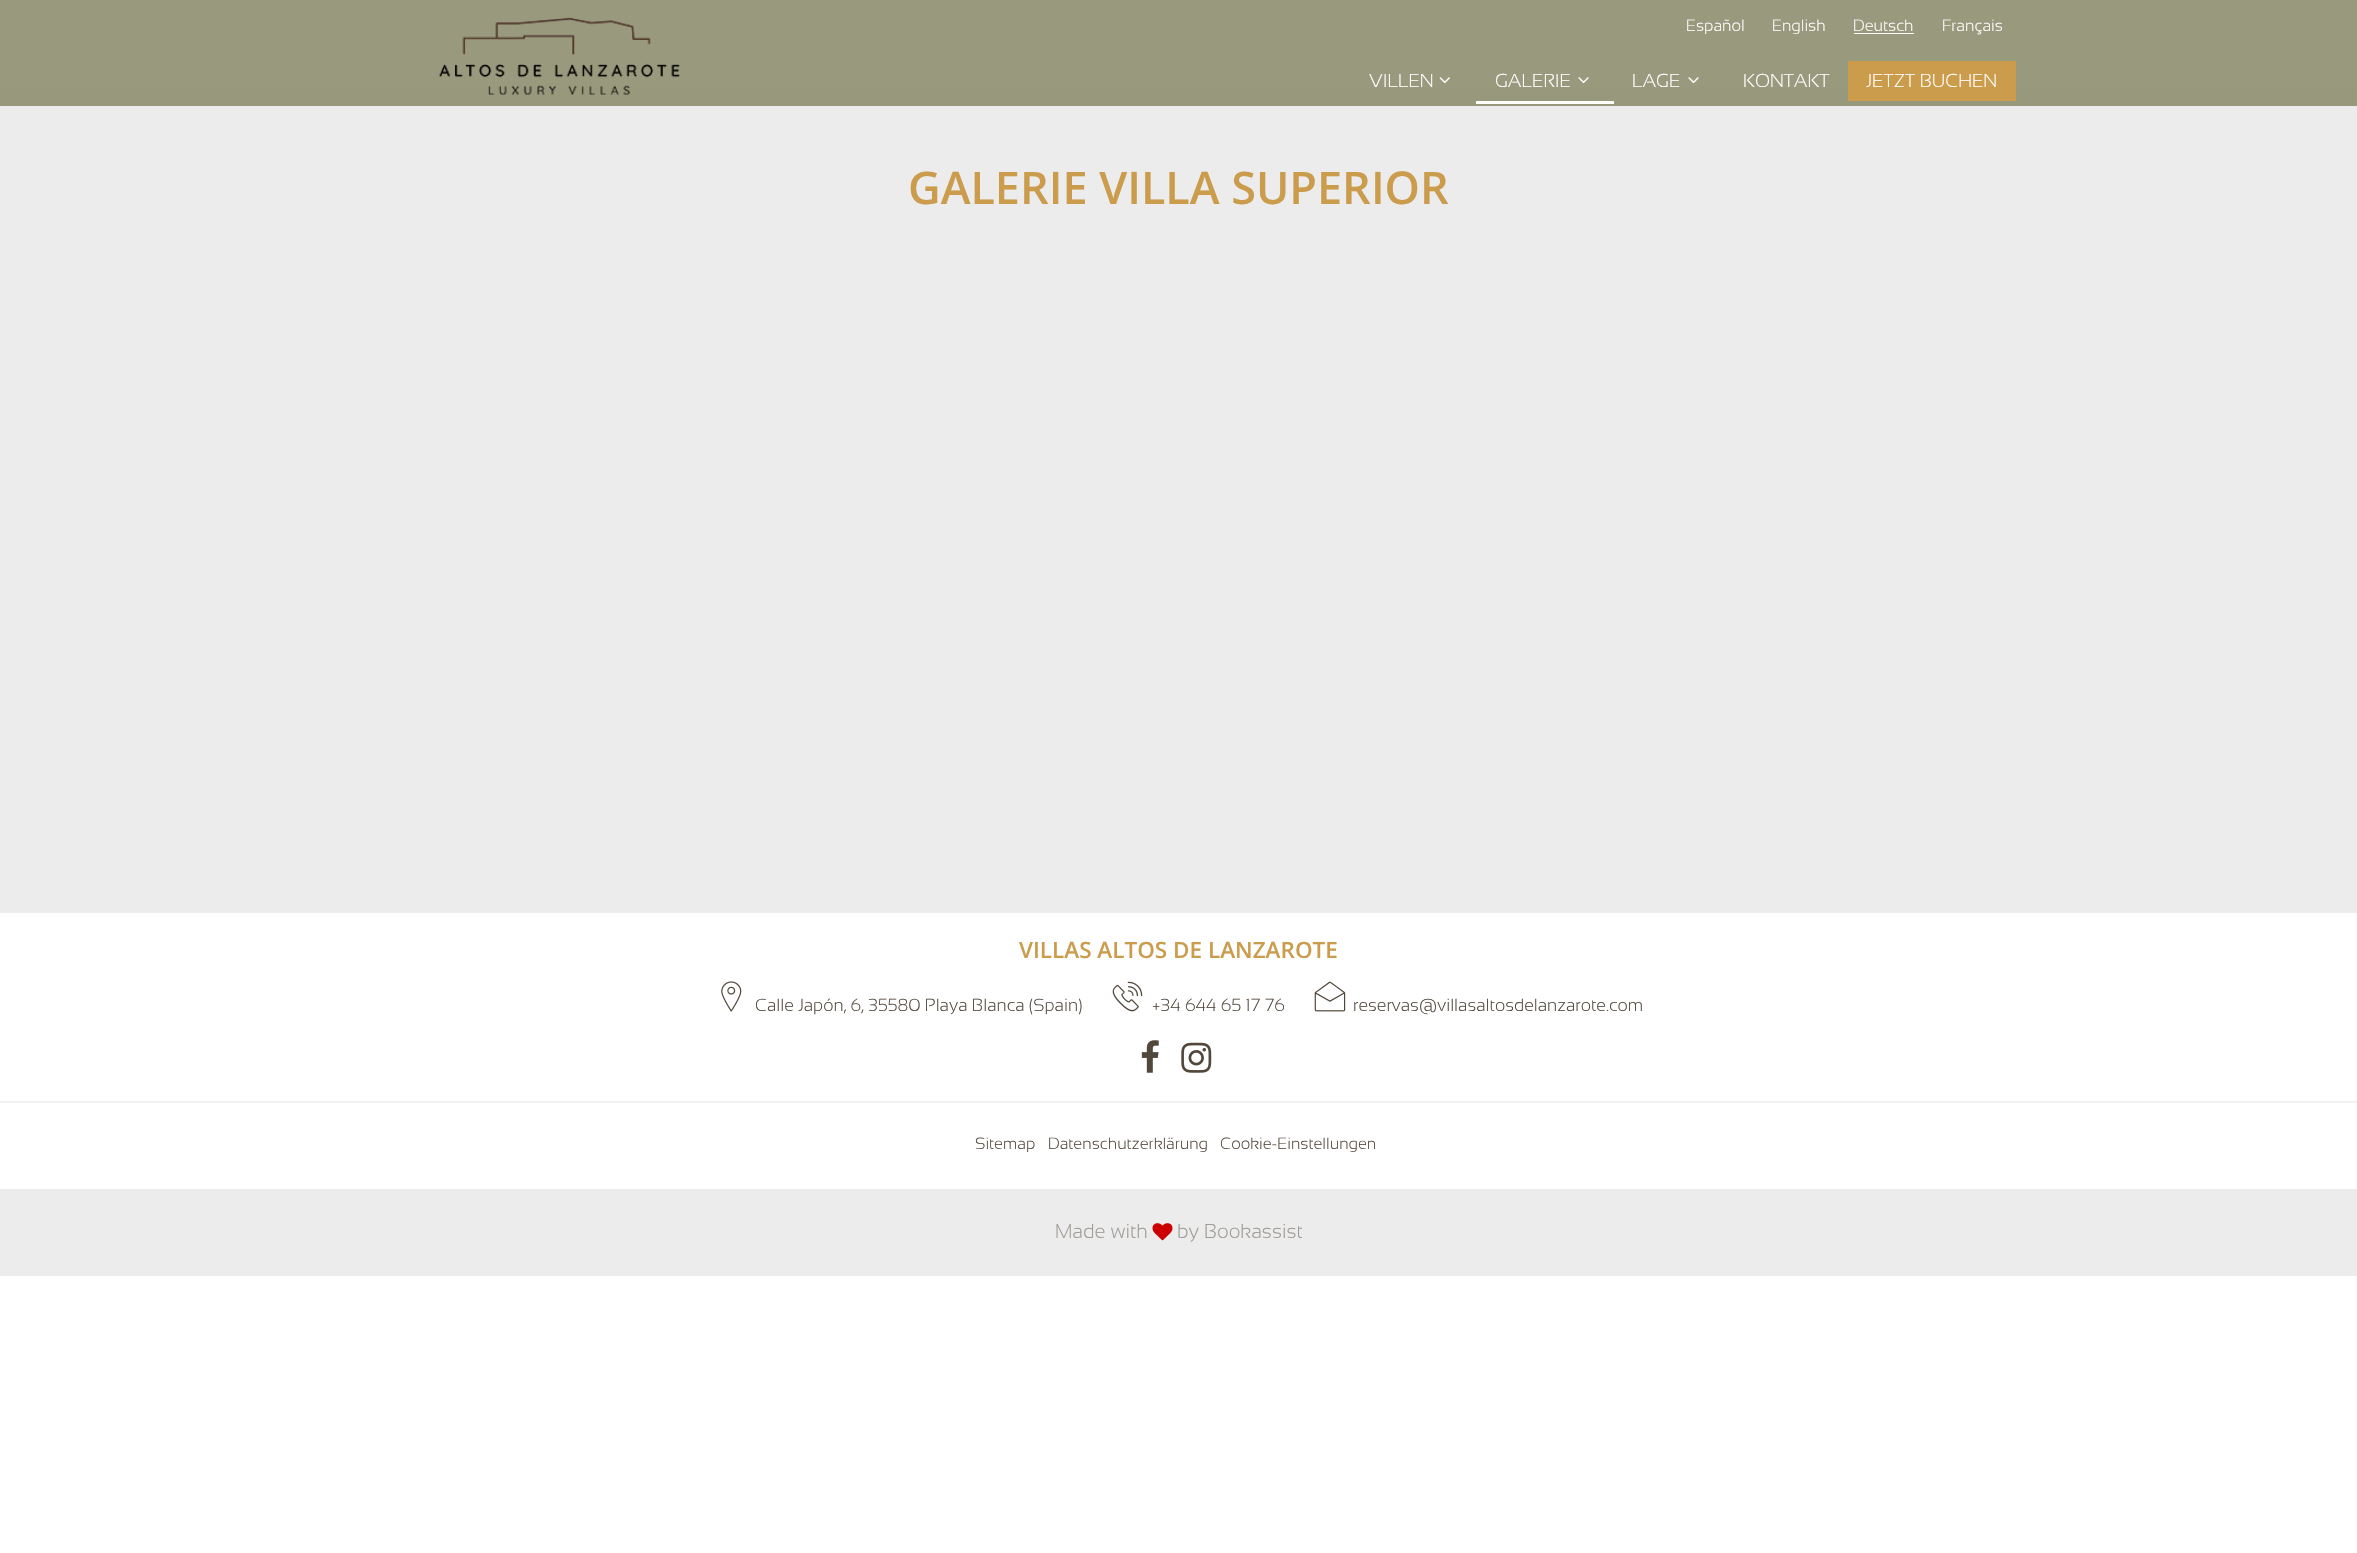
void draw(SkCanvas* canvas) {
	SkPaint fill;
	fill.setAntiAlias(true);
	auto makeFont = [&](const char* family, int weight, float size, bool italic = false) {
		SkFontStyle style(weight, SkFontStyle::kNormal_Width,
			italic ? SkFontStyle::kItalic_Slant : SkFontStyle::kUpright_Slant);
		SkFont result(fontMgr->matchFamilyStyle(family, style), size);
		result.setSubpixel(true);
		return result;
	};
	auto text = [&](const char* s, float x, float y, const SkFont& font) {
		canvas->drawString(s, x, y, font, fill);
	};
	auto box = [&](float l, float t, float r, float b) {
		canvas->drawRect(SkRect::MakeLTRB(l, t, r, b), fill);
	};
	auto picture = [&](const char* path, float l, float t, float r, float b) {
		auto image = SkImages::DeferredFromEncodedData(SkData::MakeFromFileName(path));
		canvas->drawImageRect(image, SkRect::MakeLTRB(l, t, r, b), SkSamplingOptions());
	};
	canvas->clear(0xFFFFFFFF);
	fill.setColor(0xFF999A7D);
	box(0, 0, 2357, 88);
	fill.setColor(0xFF98997C);
	box(0, 88, 2357, 106);
	picture("image0.png", 439, 17, 680, 95);
	fill.setColor(0xFFFFFFFF);
	box(1854, 33, 1914, 34);
	picture("image1.png", 1439, 77, 1450, 84);
	box(1476, 101, 1614, 104);
	picture("image2.png", 1578, 77, 1589, 84);
	picture("image2.png", 1688, 77, 1699, 84);
	fill.setColor(0xFFCA9C4B);
	box(1848, 61, 2016, 101);
	fill.setColor(0xFFECECEC);
	box(0, 106, 2357, 1276);
	fill.setColor(0xFFFFFFFF);
	box(0, 913, 2357, 1189);
	canvas->save();
	canvas->clipRect(SkRect::MakeLTRB(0, 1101, 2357, 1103));
	fill.setColor(0x0D000000);
	fill.setMaskFilter(SkMaskFilter::MakeBlur(kNormal_SkBlurStyle, 0.5f));
	canvas->drawRect(SkRect::MakeLTRB(0, 914, 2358, 1103), fill);
	fill.setMaskFilter(nullptr);
	canvas->restore();
	picture("image3.png", 721, 981, 742, 1012);
	picture("image4.png", 1112, 981, 1143, 1012);
	picture("image5.png", 1314, 981, 1346, 1012);
	picture("image6.png", 1141, 1040, 1159, 1073);
	picture("image7.png", 1181, 1042, 1212, 1073);
	picture("image8.png", 1152, 1223, 1173, 1241);
	auto font1 = makeFont("Sansation Light", 300, 16.25f);
	fill.setColor(0xFFFFFFFF);
	text("Español", 1686, 31, font1);
	text("English", 1772, 31, font1);
	text("Deutsch", 1853, 31, font1);
	text("Français", 1942, 31, font1);
	auto font2 = makeFont("Sansation Light", 300, 18.75f);
	text("VILLEN", 1369, 87, font2);
	text("GALERIE", 1495, 87, font2);
	text("LAGE", 1632, 87, font2);
	text("KONTAKT", 1743, 87, font2);
	text("JETZT BUCHEN", 1866, 87, font2);
	auto font3 = makeFont("Open Sans", 600, 45);
	fill.setColor(0xFFCA9C4B);
	text("GALERIE VILLA SUPERIOR", 908, 204, font3);
	auto font4 = makeFont("Open Sans", 600, 22.5f);
	text("VILLAS ALTOS DE LANZAROTE", 1019, 958, font4);
	auto font5 = makeFont("Sansation Light", 300, 17.5f);
	fill.setColor(0xFF51473B);
	text("Calle Japón, 6, 35580 Playa Blanca (Spain)", 755, 1011, font5);
	text("+34 644 65 17 76", 1152, 1011, font5);
	text("reservas@villasaltosdelanzarote.com", 1353, 1011, font5);
	text("Sitemap", 975, 1149, font1);
	text("Datenschutzerklärung", 1048, 1149, font1);
	text("Cookie-Einstellungen", 1220, 1149, font1);
	auto font6 = makeFont("Sansation Light", 300, 20);
	fill.setColor(0xFF9F9A94);
	text("Made with", 1055, 1238, font6);
	text("by Bookassist", 1177, 1238, font6);
}
